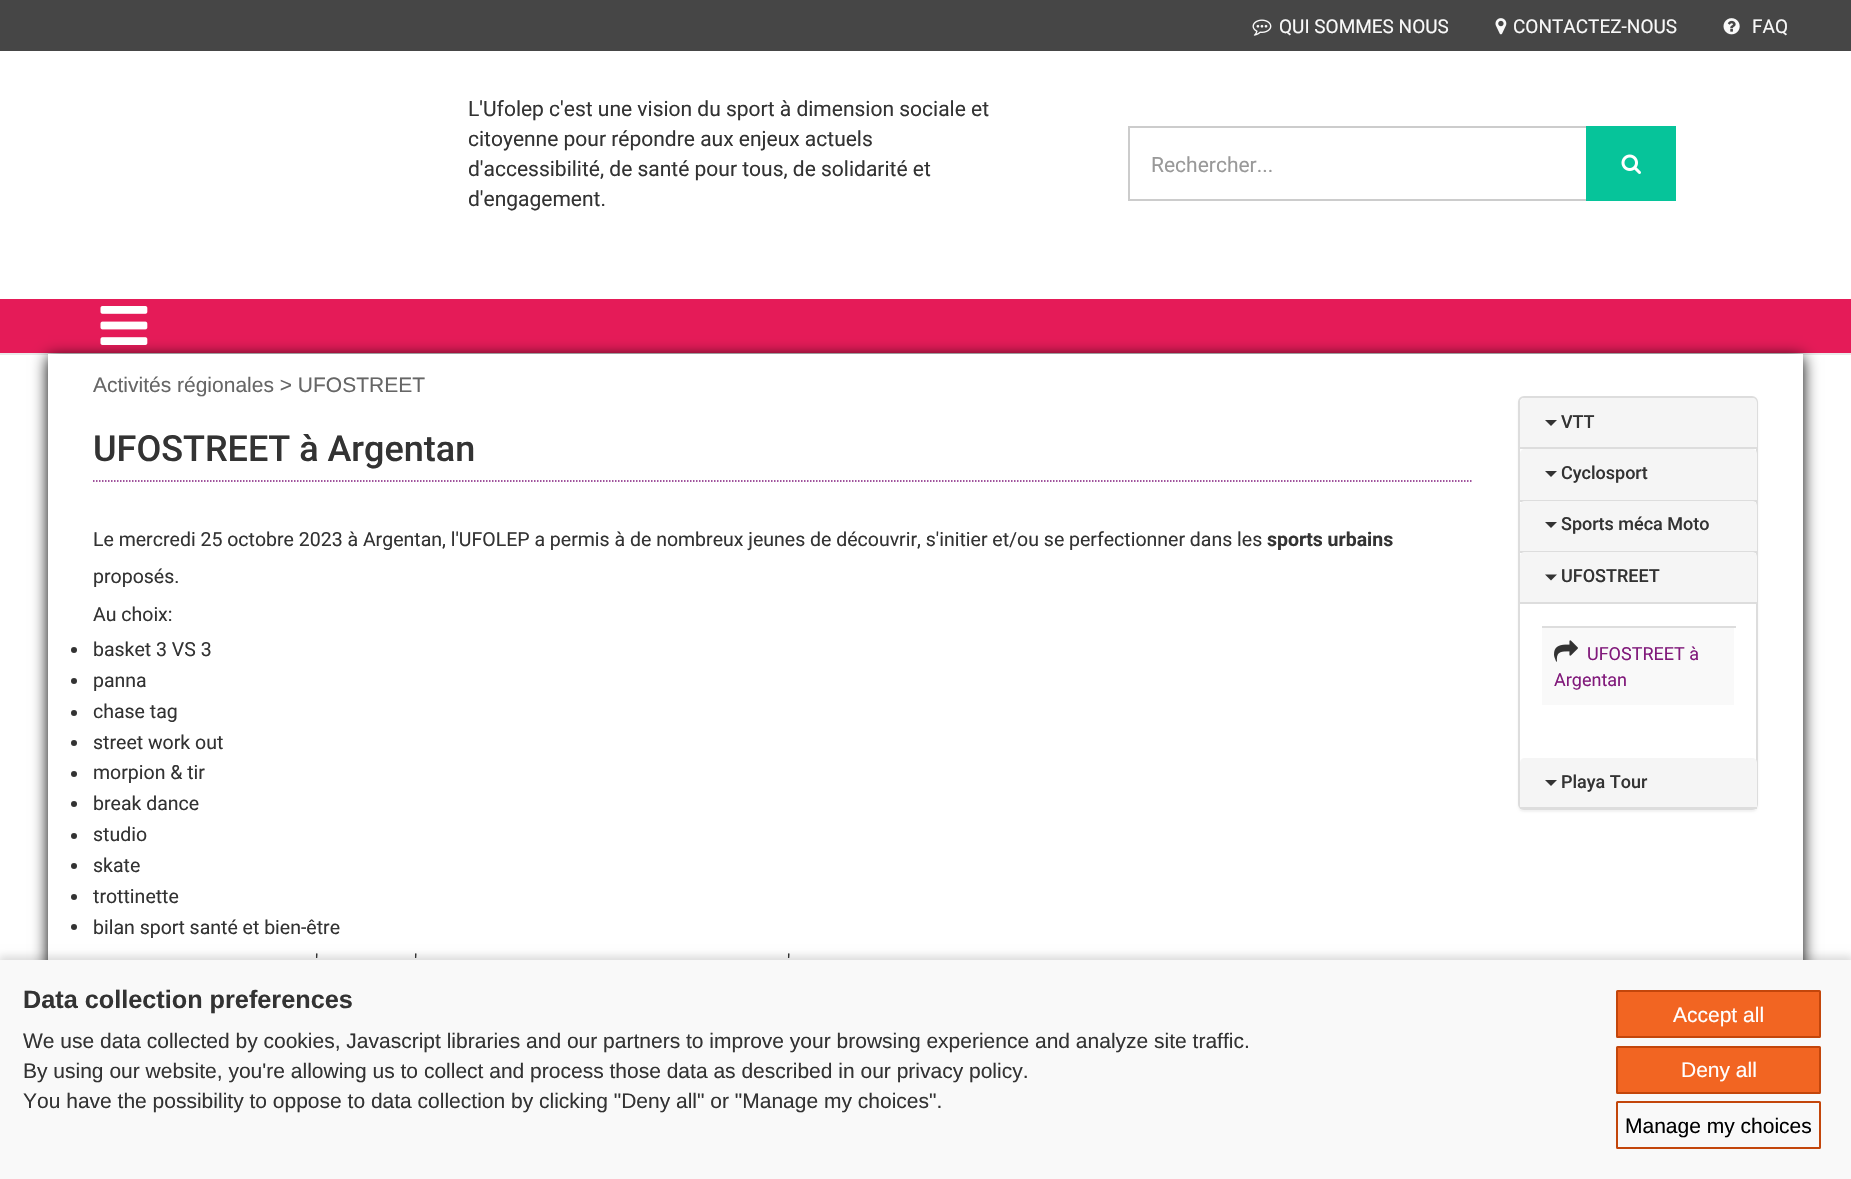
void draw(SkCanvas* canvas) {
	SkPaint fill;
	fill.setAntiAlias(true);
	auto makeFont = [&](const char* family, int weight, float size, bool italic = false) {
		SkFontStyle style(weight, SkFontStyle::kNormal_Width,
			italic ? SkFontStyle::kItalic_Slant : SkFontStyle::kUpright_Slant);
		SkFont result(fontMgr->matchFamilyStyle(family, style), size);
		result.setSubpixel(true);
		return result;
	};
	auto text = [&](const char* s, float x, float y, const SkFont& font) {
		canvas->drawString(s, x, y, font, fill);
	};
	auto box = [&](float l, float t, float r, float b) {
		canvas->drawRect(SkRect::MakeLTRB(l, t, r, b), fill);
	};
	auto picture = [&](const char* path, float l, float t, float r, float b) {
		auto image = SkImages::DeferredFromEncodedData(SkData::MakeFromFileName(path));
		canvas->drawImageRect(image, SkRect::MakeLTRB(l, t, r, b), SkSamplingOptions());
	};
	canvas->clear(0xFFFFFFFF);
	fill.setColor(0xFF464646);
	box(0, 0, 1851, 51);
	picture("image0.png", 1252, 19, 1272, 36);
	picture("image1.png", 1495, 18, 1507, 35);
	picture("image2.png", 1723, 18, 1740, 35);
	fill.setStyle(SkPaint::kStroke_Style);
	fill.setStrokeWidth(2);
	fill.setColor(0xFFCCCCCC);
	canvas->drawRect(SkRect::MakeLTRB(1129, 127, 1675, 200), fill);
	fill.setStyle(SkPaint::kFill_Style);
	fill.setColor(0xFF06C49A);
	box(1586, 126, 1676, 201);
	picture("image3.png", 1621, 154, 1641, 174);
	fill.setColor(0xFFE51B58);
	box(0, 299, 1851, 353);
	fill.setColor(0xFFEAEAEA);
	box(0, 353, 1851, 355);
	fill.setColor(0xFF000000);
	fill.setMaskFilter(SkMaskFilter::MakeBlur(kNormal_SkBlurStyle, 7.5f));
	canvas->drawRect(SkRect::MakeLTRB(48, 357, 1803, 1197), fill);
	fill.setMaskFilter(nullptr);
	picture("image4.png", 100, 306, 148, 345);
	fill.setColor(0xFFFFFFFF);
	box(48, 354, 1803, 960);
	fill.setStyle(SkPaint::kStroke_Style);
	fill.setStrokeWidth(1.5f);
	fill.setColor(0xFF811A7B);
	fill.setPathEffect(SkDashPathEffect::Make({{1.5f, 1.5f}}, 0));
	canvas->drawPath(SkPathBuilder().moveTo(93, 481).lineTo(1473, 481).detach(), fill);
	fill.setPathEffect(nullptr);
	fill.setStyle(SkPaint::kFill_Style);
	fill.setColor(0xFF333333);
	canvas->drawCircle(74, 650, 3, fill);
	canvas->drawCircle(74, 681, 3, fill);
	canvas->drawCircle(74, 713, 3, fill);
	canvas->drawCircle(74, 743, 3, fill);
	canvas->drawCircle(74, 774, 3, fill);
	canvas->drawCircle(74, 804, 3, fill);
	canvas->drawCircle(74, 836, 3, fill);
	canvas->drawCircle(74, 866, 3, fill);
	canvas->drawCircle(74, 897, 3, fill);
	canvas->drawCircle(74, 927, 3, fill);
	fill.setColor(0x0D000000);
	fill.setMaskFilter(SkMaskFilter::MakeBlur(kNormal_SkBlurStyle, 1));
	canvas->drawRoundRect(SkRect::MakeLTRB(1518, 398, 1758, 812), 6, 6, fill);
	fill.setMaskFilter(nullptr);
	fill.setColor(0xFFFFFFFF);
	canvas->drawRoundRect(SkRect::MakeLTRB(1519, 397, 1757, 809), 5, 5, fill);
	fill.setStyle(SkPaint::kStroke_Style);
	fill.setStrokeWidth(2);
	fill.setColor(0xFFDDDDDD);
	canvas->drawRoundRect(SkRect::MakeLTRB(1519, 397, 1757, 809), 5, 5, fill);
	fill.setStyle(SkPaint::kFill_Style);
	fill.setColor(0xFFF5F5F5);
	canvas->drawPath(SkPathBuilder().moveTo(1525, 398).lineTo(1752, 398).cubicTo(1755, 398, 1757, 400, 1757, 403).lineTo(1757, 449).lineTo(1520, 449).lineTo(1520, 403).cubicTo(1520, 400, 1522, 398, 1525, 398).close().detach(), fill);
	fill.setColor(0xFFDDDDDD);
	box(1520, 447, 1757, 449);
	fill.setColor(0xFF333333);
	canvas->drawPath(SkPathBuilder().moveTo(1545, 420).lineTo(1557, 420).lineTo(1551, 426).close().detach(), fill);
	fill.setColor(0xFFF5F5F5);
	canvas->drawPath(SkPathBuilder().moveTo(1525, 449).lineTo(1752, 449).cubicTo(1755, 449, 1757, 451, 1757, 454).lineTo(1757, 501).lineTo(1520, 501).lineTo(1520, 454).cubicTo(1520, 451, 1522, 449, 1525, 449).close().detach(), fill);
	fill.setColor(0xFFDDDDDD);
	box(1520, 500, 1757, 502);
	fill.setColor(0xFF333333);
	canvas->drawPath(SkPathBuilder().moveTo(1545, 471).lineTo(1557, 471).lineTo(1551, 477).close().detach(), fill);
	fill.setColor(0xFFF5F5F5);
	canvas->drawPath(SkPathBuilder().moveTo(1525, 501).lineTo(1752, 501).cubicTo(1755, 501, 1757, 503, 1757, 506).lineTo(1757, 552).lineTo(1520, 552).lineTo(1520, 506).cubicTo(1520, 503, 1522, 501, 1525, 501).close().detach(), fill);
	fill.setColor(0xFFDDDDDD);
	box(1520, 551, 1757, 553);
	fill.setColor(0xFF333333);
	canvas->drawPath(SkPathBuilder().moveTo(1545, 522).lineTo(1557, 522).lineTo(1551, 528).close().detach(), fill);
	fill.setColor(0xFFF5F5F5);
	canvas->drawPath(SkPathBuilder().moveTo(1525, 552).lineTo(1752, 552).cubicTo(1755, 552, 1757, 554, 1757, 557).lineTo(1757, 603).lineTo(1520, 603).lineTo(1520, 557).cubicTo(1520, 554, 1522, 552, 1525, 552).close().detach(), fill);
	fill.setColor(0xFFDDDDDD);
	box(1520, 602, 1757, 604);
	fill.setColor(0xFF333333);
	canvas->drawPath(SkPathBuilder().moveTo(1545, 574.5f).lineTo(1557, 574.5f).lineTo(1551, 580.5f).close().detach(), fill);
	fill.setColor(0xFFF9F9F9);
	box(1542, 628, 1734, 705);
	fill.setColor(0xFFDDDDDD);
	box(1542, 626, 1736, 628);
	picture("image5.png", 1554, 640, 1578, 662);
	fill.setColor(0xFFF5F5F5);
	canvas->drawPath(SkPathBuilder().moveTo(1525, 758).lineTo(1752, 758).cubicTo(1755, 758, 1757, 760, 1757, 763).lineTo(1757, 809).lineTo(1520, 809).lineTo(1520, 763).cubicTo(1520, 760, 1522, 758, 1525, 758).close().detach(), fill);
	fill.setColor(0xFFDDDDDD);
	box(1520, 807, 1757, 809);
	fill.setColor(0xFF333333);
	canvas->drawPath(SkPathBuilder().moveTo(1545, 780).lineTo(1557, 780).lineTo(1551, 786).close().detach(), fill);
	fill.setColor(0x24000000);
	fill.setMaskFilter(SkMaskFilter::MakeBlur(kNormal_SkBlurStyle, 4));
	canvas->drawRect(SkRect::MakeLTRB(-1, 956, 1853, 1178), fill);
	fill.setMaskFilter(nullptr);
	fill.setColor(0xFFF9F9F9);
	box(0, 960, 1851, 1179);
	fill.setColor(0xFFF26522);
	canvas->drawRoundRect(SkRect::MakeLTRB(1617, 991, 1820, 1037), 0.5f, 0.5f, fill);
	fill.setStyle(SkPaint::kStroke_Style);
	fill.setColor(0xFFC3460B);
	canvas->drawRoundRect(SkRect::MakeLTRB(1617, 991, 1820, 1037), 0.5f, 0.5f, fill);
	fill.setStyle(SkPaint::kFill_Style);
	fill.setColor(0xFFF26522);
	canvas->drawRoundRect(SkRect::MakeLTRB(1617, 1047, 1820, 1093), 0.5f, 0.5f, fill);
	fill.setStyle(SkPaint::kStroke_Style);
	fill.setColor(0xFFC3460B);
	canvas->drawRoundRect(SkRect::MakeLTRB(1617, 1047, 1820, 1093), 0.5f, 0.5f, fill);
	canvas->drawRoundRect(SkRect::MakeLTRB(1617, 1102, 1820, 1148), 0.5f, 0.5f, fill);
	auto font1 = makeFont("Roboto", 400, 19);
	fill.setStyle(SkPaint::kFill_Style);
	fill.setColor(0xFFF9F9F9);
	text("QUI SOMMES NOUS", 1279, 33, font1);
	text("CONTACTEZ-NOUS", 1513, 33, font1);
	text("FAQ", 1752, 33, font1);
	auto font2 = makeFont("Roboto", 400, 21);
	fill.setColor(0xFF333333);
	text("L'Ufolep c'est une vision du sport à dimension sociale et", 468, 116, font2);
	text("citoyenne pour répondre aux enjeux actuels", 468, 146, font2);
	text("d'accessibilité, de santé pour tous, de solidarité et", 468, 176, font2);
	text("d'engagement.", 468, 206, font2);
	fill.setColor(0xFF999999);
	text("Rechercher...", 1151, 172, font2);
	auto font3 = makeFont("Liberation Sans", 400, 21);
	fill.setColor(0xFF666666);
	text("Activités régionales > UFOSTREET", 93, 392, font3);
	auto font4 = makeFont("Roboto", 500, 36);
	fill.setColor(0xFF333333);
	text("UFOSTREET à Argentan", 93, 461, font4);
	auto font5 = makeFont("Roboto", 400, 19.5f);
	text("Le mercredi 25 octobre 2023 à Argentan, l'UFOLEP a permis à de nombreux jeunes de découvrir, s'initier et/ou se perfectionner dans les", 93, 546, font5);
	auto font6 = makeFont("Roboto", 700, 19.5f);
	text("sports urbains", 1267, 546, font6);
	text("proposés.", 93, 583, font5);
	text("Au choix:", 93, 621, font5);
	text("basket 3 VS 3", 93, 656, font5);
	text("panna", 93, 687, font5);
	text("chase tag", 93, 718, font5);
	text("street work out", 93, 749, font5);
	text("morpion & tir", 93, 779, font5);
	text("break dance", 93, 810, font5);
	text("studio", 93, 841, font5);
	text("skate", 93, 872, font5);
	text("trottinette", 93, 903, font5);
	text("bilan sport santé et bien-être", 93, 934, font5);
	text("'", 315, 968, font5);
	text("'", 414, 968, font5);
	text("'", 787, 968, font5);
	auto font7 = makeFont("Roboto", 500, 18);
	text("VTT", 1561, 428, font7);
	text("Cyclosport", 1561, 479, font7);
	text("Sports méca Moto", 1561, 530, font7);
	text("UFOSTREET", 1561, 582, font7);
	auto font8 = makeFont("Roboto", 400, 18);
	fill.setColor(0xFF811A7B);
	text("UFOSTREET à", 1587, 660, font8);
	text("Argentan", 1554, 686, font8);
	fill.setColor(0xFF333333);
	text("Playa Tour", 1561, 788, font7);
	auto font9 = makeFont("Liberation Sans", 700, 25.25f);
	text("Data collection preferences", 23, 1008, font9);
	text("We use data collected by cookies, Javascript libraries and our partners to improve your browsing experience and analyze site traffic.", 23, 1048, font3);
	text("By using our website, you're allowing us to collect and process those data as described in our privacy policy.", 23, 1078, font3);
	text("You have the possibility to oppose to data collection by clicking \"Deny all\" or \"Manage my choices\".", 23, 1108, font3);
	fill.setColor(0xFFFFFFFF);
	text("Accept all", 1673, 1022, font3);
	text("Deny all", 1681, 1077, font3);
	fill.setColor(0xFF000000);
	text("Manage my choices", 1625, 1133, font3);
}
